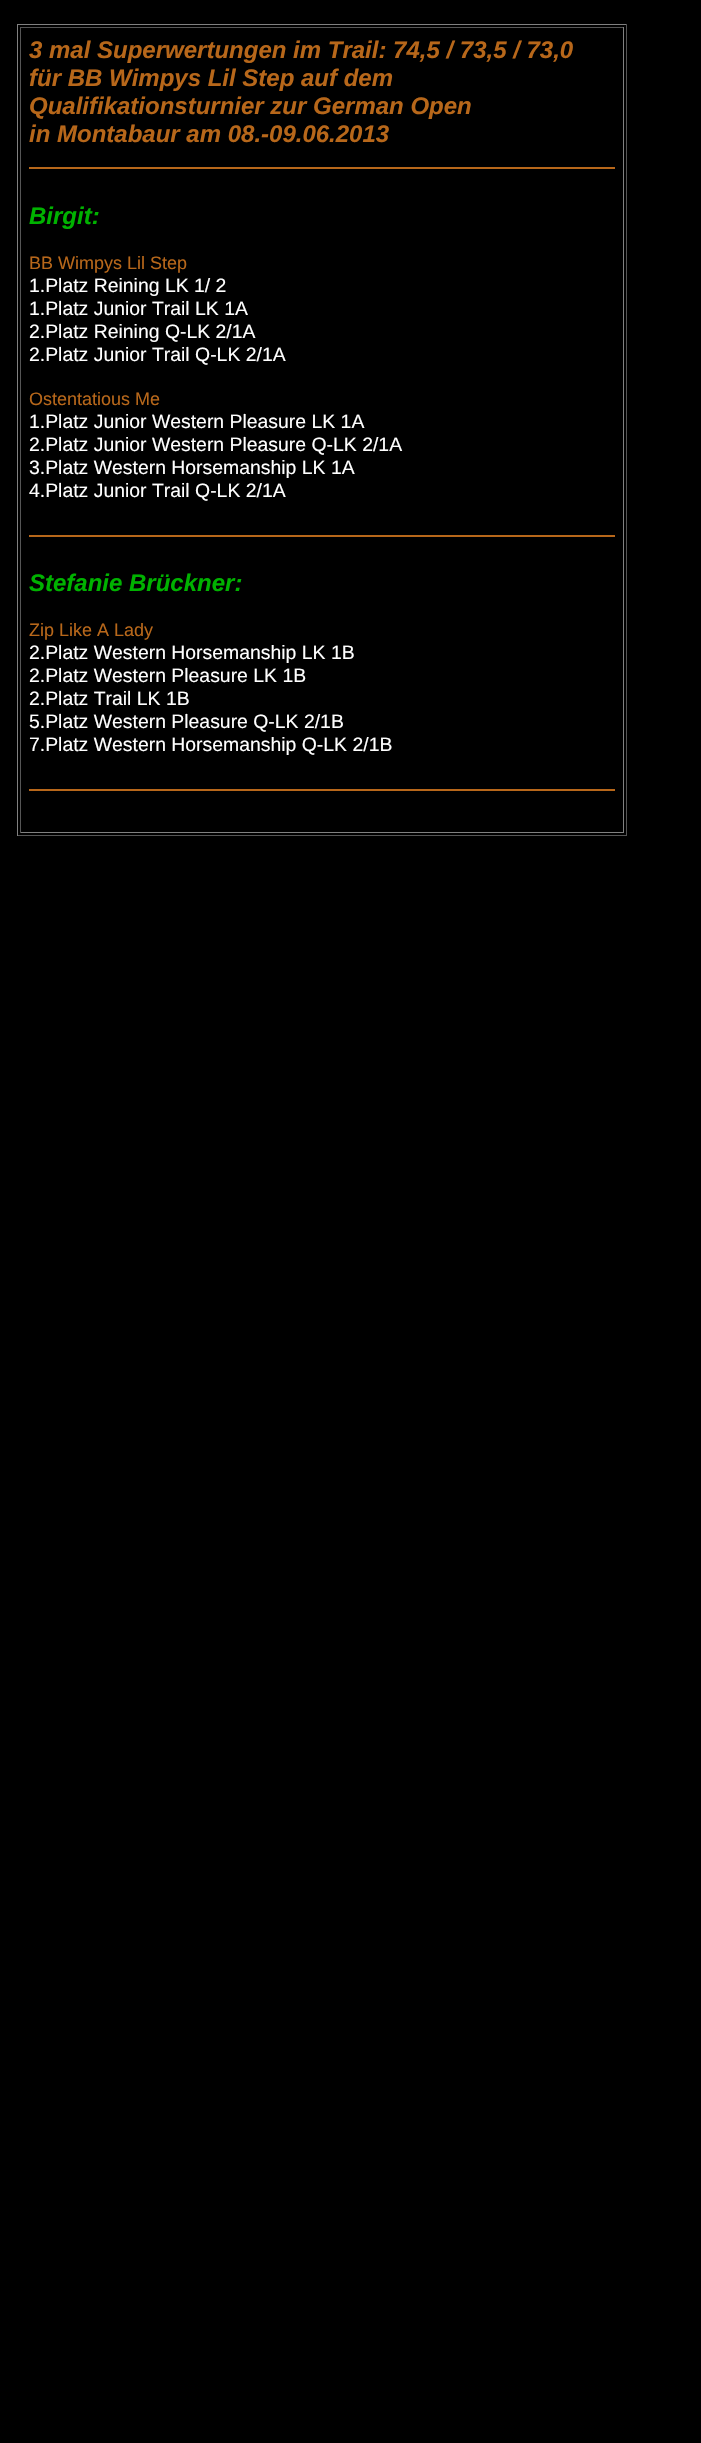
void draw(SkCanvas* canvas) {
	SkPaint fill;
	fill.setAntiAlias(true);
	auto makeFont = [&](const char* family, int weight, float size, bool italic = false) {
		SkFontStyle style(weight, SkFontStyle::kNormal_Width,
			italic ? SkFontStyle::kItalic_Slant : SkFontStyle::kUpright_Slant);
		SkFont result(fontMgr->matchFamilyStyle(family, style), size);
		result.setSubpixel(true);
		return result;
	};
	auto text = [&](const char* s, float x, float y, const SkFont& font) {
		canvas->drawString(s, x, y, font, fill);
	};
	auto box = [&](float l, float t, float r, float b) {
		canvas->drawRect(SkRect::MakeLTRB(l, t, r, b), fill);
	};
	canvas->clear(0xFF000000);
	fill.setColor(0xFF808080);
	box(17, 24, 627, 25);
	fill.setColor(0xFF555555);
	box(626, 24, 627, 836);
	box(17, 835, 627, 836);
	fill.setColor(0xFF808080);
	box(17, 24, 18, 836);
	fill.setColor(0xFF555555);
	box(20, 27, 624, 28);
	fill.setColor(0xFF808080);
	box(623, 27, 624, 833);
	box(20, 832, 624, 833);
	fill.setColor(0xFF555555);
	box(20, 27, 21, 833);
	fill.setColor(0xFFB7671A);
	box(29, 167, 615, 169);
	box(29, 535, 615, 537);
	box(29, 789, 615, 791);
	auto font1 = makeFont("Liberation Sans", 700, 24, true);
	text("3 mal Superwertungen im Trail: 74,5 / 73,5 / 73,0", 29, 58, font1);
	text("für BB Wimpys Lil Step auf dem", 29, 86, font1);
	text("Qualifikationsturnier zur German Open", 29, 114, font1);
	text("in Montabaur am 08.-09.06.2013", 29, 142, font1);
	fill.setColor(0xFF00B200);
	text("Birgit:", 29, 224, font1);
	auto font2 = makeFont("Liberation Sans", 400, 18);
	fill.setColor(0xFFB7671A);
	text("BB Wimpys Lil Step", 29, 269, font2);
	auto font3 = makeFont("Liberation Sans", 400, 19.4f);
	fill.setColor(0xFFFFFFFF);
	text("1.Platz Reining LK 1/ 2", 29, 292, font3);
	text("1.Platz Junior Trail LK 1A", 29, 315, font3);
	text("2.Platz Reining Q-LK 2/1A", 29, 338, font3);
	text("2.Platz Junior Trail Q-LK 2/1A", 29, 361, font3);
	fill.setColor(0xFFB7671A);
	text("Ostentatious Me", 29, 405, font2);
	fill.setColor(0xFFFFFFFF);
	text("1.Platz Junior Western Pleasure LK 1A", 29, 428, font3);
	text("2.Platz Junior Western Pleasure Q-LK 2/1A", 29, 451, font3);
	text("3.Platz Western Horsemanship LK 1A", 29, 474, font3);
	text("4.Platz Junior Trail Q-LK 2/1A", 29, 497, font3);
	fill.setColor(0xFF00B200);
	text("Stefanie Brückner:", 29, 591, font1);
	fill.setColor(0xFFB7671A);
	text("Zip Like A Lady", 29, 636, font2);
	fill.setColor(0xFFFFFFFF);
	text("2.Platz Western Horsemanship LK 1B", 29, 659, font3);
	text("2.Platz Western Pleasure LK 1B", 29, 682, font3);
	text("2.Platz Trail LK 1B", 29, 705, font3);
	text("5.Platz Western Pleasure Q-LK 2/1B", 29, 728, font3);
	text("7.Platz Western Horsemanship Q-LK 2/1B", 29, 751, font3);
}
